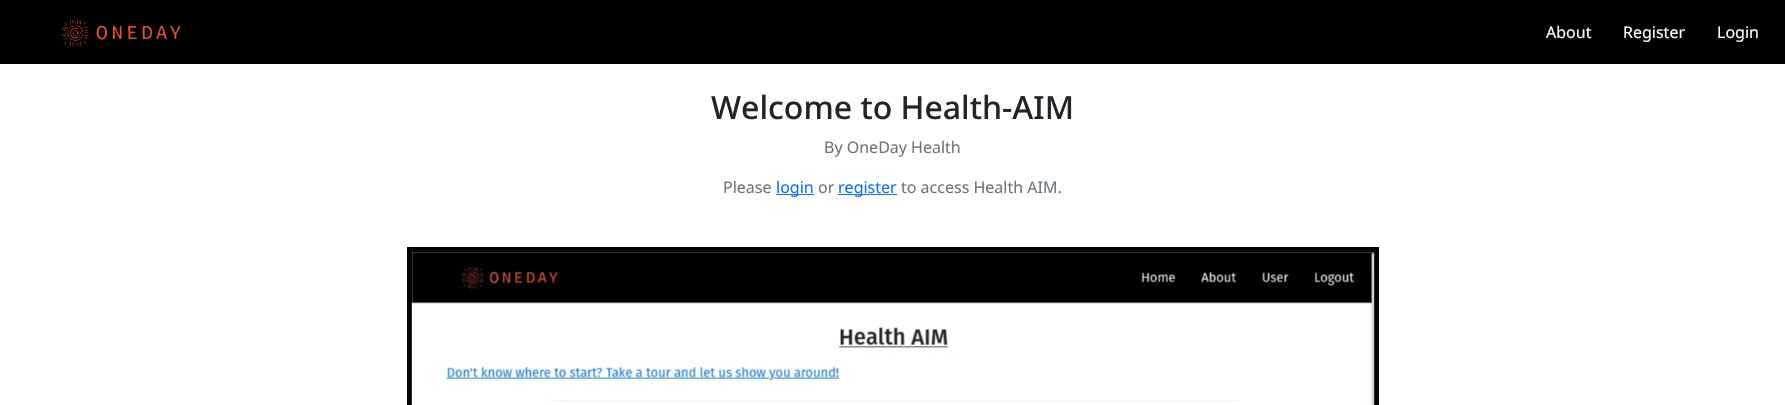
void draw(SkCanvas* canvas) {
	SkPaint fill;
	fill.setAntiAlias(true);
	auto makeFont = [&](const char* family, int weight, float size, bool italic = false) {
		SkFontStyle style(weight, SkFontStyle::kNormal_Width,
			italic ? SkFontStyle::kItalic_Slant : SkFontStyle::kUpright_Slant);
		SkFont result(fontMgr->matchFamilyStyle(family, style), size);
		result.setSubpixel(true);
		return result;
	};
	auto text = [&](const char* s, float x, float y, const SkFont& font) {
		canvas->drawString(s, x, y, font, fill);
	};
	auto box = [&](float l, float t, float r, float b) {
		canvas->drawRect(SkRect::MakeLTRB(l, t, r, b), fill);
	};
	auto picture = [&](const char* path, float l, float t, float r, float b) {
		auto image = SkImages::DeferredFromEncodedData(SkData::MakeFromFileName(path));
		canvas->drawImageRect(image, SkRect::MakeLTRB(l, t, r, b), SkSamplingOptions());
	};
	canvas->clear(0xFFFFFFFF);
	fill.setColor(0xFF000000);
	box(0, 0, 1785, 64);
	picture("image0.png", 61, 19, 181, 47);
	fill.setColor(0xFF0D6EFD);
	box(776, 194, 814, 195);
	box(838, 194, 897, 195);
	fill.setStyle(SkPaint::kStroke_Style);
	fill.setStrokeWidth(5);
	fill.setColor(0xFF000000);
	canvas->drawRect(SkRect::MakeLTRB(409.5f, 249.5f, 1376.5f, 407.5f), fill);
	picture("image1.png", 411, 252, 1375, 405);
	auto font1 = makeFont("Noto Sans", 400, 16);
	fill.setStyle(SkPaint::kFill_Style);
	fill.setColor(0xFFFFFFFF);
	text("About", 1546, 38, font1);
	text("Register", 1623, 38, font1);
	text("Login", 1717, 38, font1);
	auto font2 = makeFont("Noto Sans", 500, 32);
	fill.setColor(0xFF212529);
	text("Welcome to Health-AIM", 711, 119, font2);
	fill.setColor(0xFF6C757D);
	text("By OneDay Health", 824, 153, font1);
	text("Please", 723, 193, font1);
	fill.setColor(0xFF0D6EFD);
	text("login", 776, 193, font1);
	fill.setColor(0xFF6C757D);
	text("or", 818, 193, font1);
	fill.setColor(0xFF0D6EFD);
	text("register", 838, 193, font1);
	fill.setColor(0xFF6C757D);
	text("to access Health AIM.", 901, 193, font1);
}
